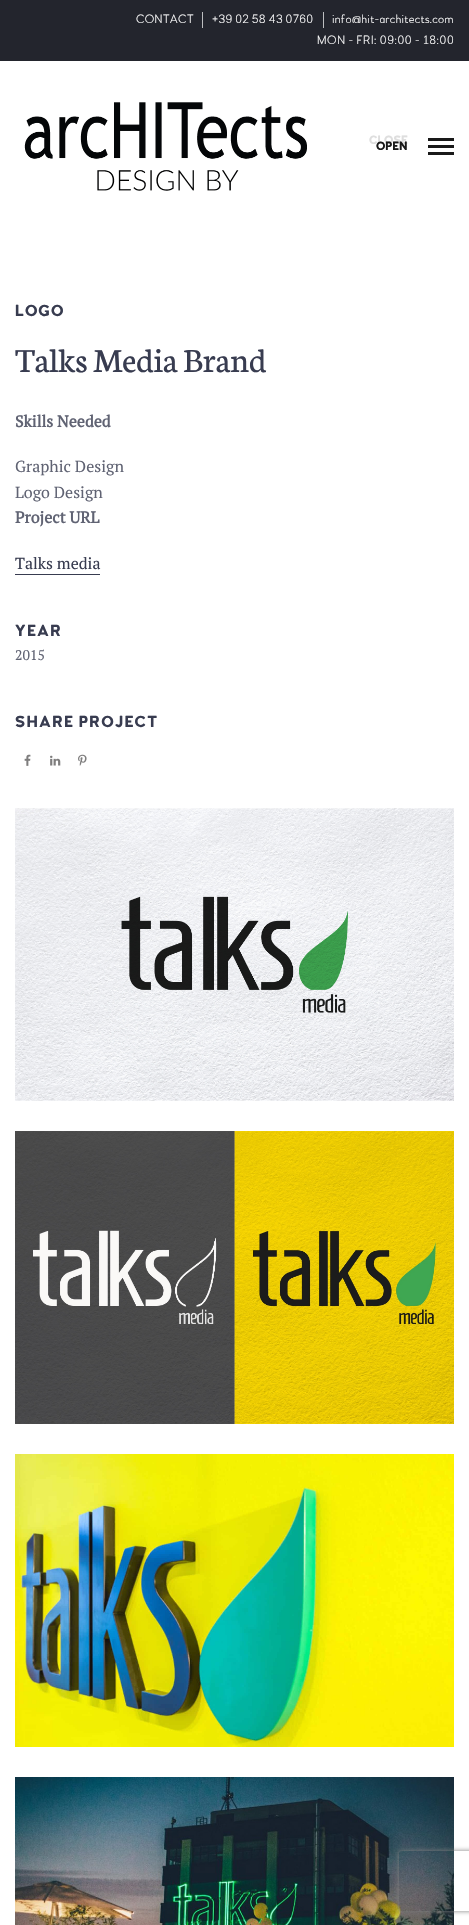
void draw(SkCanvas* canvas) {
	SkPaint fill;
	fill.setAntiAlias(true);
	auto makeFont = [&](const char* family, int weight, float size, bool italic = false) {
		SkFontStyle style(weight, SkFontStyle::kNormal_Width,
			italic ? SkFontStyle::kItalic_Slant : SkFontStyle::kUpright_Slant);
		SkFont result(fontMgr->matchFamilyStyle(family, style), size);
		result.setSubpixel(true);
		return result;
	};
	auto text = [&](const char* s, float x, float y, const SkFont& font) {
		canvas->drawString(s, x, y, font, fill);
	};
	auto spacedText = [&](const char* s, float x, float y, const SkFont& font, const SkPaint& ink, float letter, float word) {
		std::vector<SkGlyphID> glyphs(font.countText(s, strlen(s), SkTextEncoding::kUTF8));
		std::vector<float> xs(glyphs.size());
		font.textToGlyphs(s, strlen(s), SkTextEncoding::kUTF8, glyphs);
		font.getXPos(glyphs, xs, x);
		float extra = 0;
		for (size_t i = 0; i < glyphs.size(); i++) {
			xs[i] += extra;
			extra += letter + word * (glyphs[i] == font.unicharToGlyph(' '));
		}
		canvas->drawTextBlob(SkTextBlob::MakeFromPosHGlyphs(glyphs, xs, y, font), 0, 0, ink);
	};
	auto box = [&](float l, float t, float r, float b) {
		canvas->drawRect(SkRect::MakeLTRB(l, t, r, b), fill);
	};
	auto picture = [&](const char* path, float l, float t, float r, float b) {
		auto image = SkImages::DeferredFromEncodedData(SkData::MakeFromFileName(path));
		canvas->drawImageRect(image, SkRect::MakeLTRB(l, t, r, b), SkSamplingOptions());
	};
	canvas->clear(0xFFFFFFFF);
	fill.setColor(0xFF23252D);
	box(0, 0, 469, 61);
	fill.setColor(0xFFBDBEC0);
	box(202, 12, 203, 28);
	box(323, 12, 324, 28);
	picture("image0.png", 24, 102, 307, 191);
	fill.setColor(0xFF191919);
	box(428, 145, 454, 148);
	box(428, 138, 454, 141);
	box(428, 152, 454, 155);
	fill.setColor(0xFF383C50);
	box(15, 574, 100, 575);
	picture("image1.png", 24, 754, 31, 766);
	picture("image2.png", 50, 755, 61, 766);
	picture("image3.png", 78, 754, 87, 766);
	picture("image4.png", 15, 808, 454, 1101);
	picture("image5.png", 15, 1131, 454, 1424);
	picture("image6.png", 15, 1454, 454, 1747);
	picture("image7.png", 15, 1777, 454, 1925);
	canvas->save();
	canvas->clipPath(SkPathBuilder(SkPathFillType::kEvenOdd).moveTo(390, 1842).lineTo(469, 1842).lineTo(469, 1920).lineTo(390, 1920).close().moveTo(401, 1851).lineTo(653, 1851).cubicTo(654, 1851, 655, 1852, 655, 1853).lineTo(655, 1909).cubicTo(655, 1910, 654, 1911, 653, 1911).lineTo(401, 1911).cubicTo(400, 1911, 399, 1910, 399, 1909).lineTo(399, 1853).cubicTo(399, 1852, 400, 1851, 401, 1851).close().detach(), true);
	fill.setColor(0xFF808080);
	fill.setMaskFilter(SkMaskFilter::MakeBlur(kNormal_SkBlurStyle, 2.5f));
	canvas->drawRoundRect(SkRect::MakeLTRB(399, 1851, 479, 1911), 2, 2, fill);
	fill.setMaskFilter(nullptr);
	canvas->restore();
	auto font1 = makeFont("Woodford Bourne", 200, 12);
	fill.setColor(0xFFFFFFFF);
	spacedText("CONTACT", 136, 23, font1, fill, 0.3f, 0);
	spacedText("+39 02 58 43 0760", 212, 23, font1, fill, 0.3f, 0);
	spacedText("info@hit-architects.com", 332, 23, font1, fill, 0.3f, 0);
	spacedText("MON - FRI: 09:00 - 18:00", 317, 44, font1, fill, 0.6f, 0);
	auto font2 = makeFont("Woodford Bourne", 700, 12);
	fill.setColor(0xFFDEDEDE);
	text("CLOSE", 369, 144, font2);
	fill.setColor(0xFF191919);
	text("OPEN", 376, 150, font2);
	auto font3 = makeFont("Woodford Bourne", 700, 16);
	fill.setColor(0xFF383C50);
	spacedText("LOGO", 15, 316, font3, fill, 1, 0);
	auto font4 = makeFont("Neuton", 400, 36);
	text("Talks Media Brand", 15, 372, font4);
	auto font5 = makeFont("PT Serif", 700, 16);
	fill.setColor(0xFF606373);
	text("Skills Needed", 15, 427, font5);
	auto font6 = makeFont("PT Serif", 400, 16);
	text("Graphic Design", 15, 472, font6);
	text("Logo Design", 15, 498, font6);
	text("Project URL", 15, 523, font5);
	fill.setColor(0xFF383C50);
	text("Talks media", 15, 569, font6);
	spacedText("YEAR", 15, 636, font3, fill, 1.25f, 0);
	auto font7 = makeFont("PT Serif", 400, 14);
	fill.setColor(0xFF606373);
	text("2015", 15, 660, font7);
	fill.setColor(0xFF383C50);
	spacedText("SHARE PROJECT", 15, 727, font3, fill, 1.25f, 0);
}
